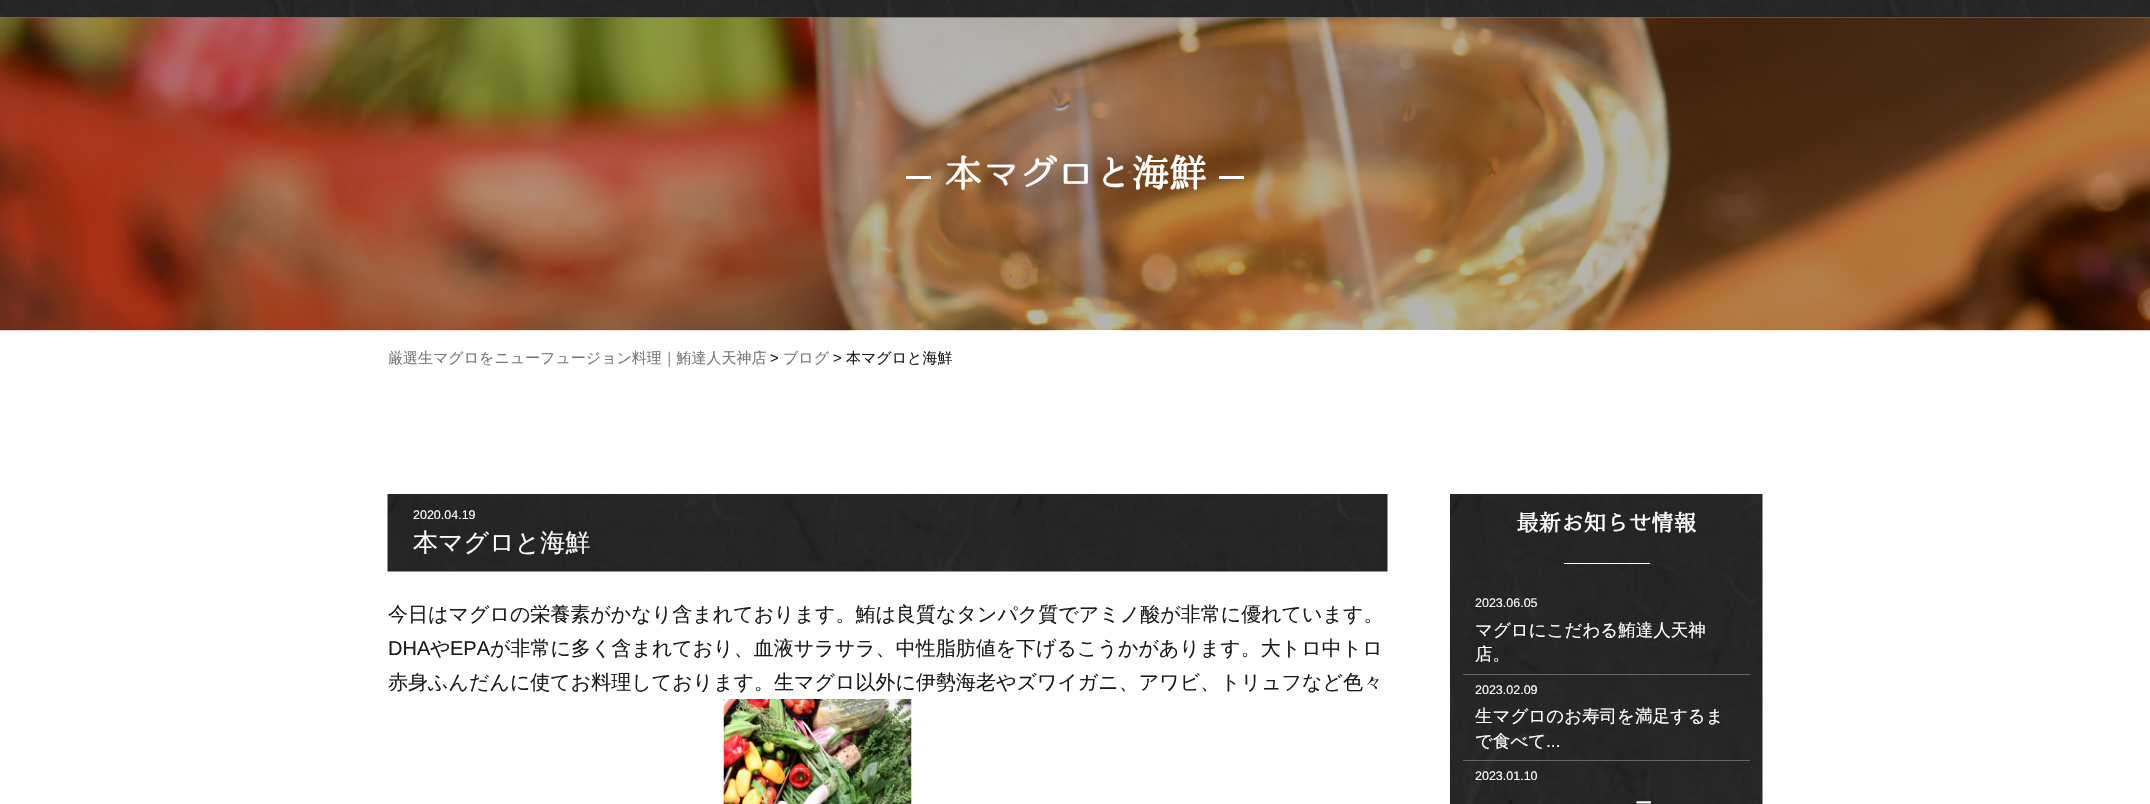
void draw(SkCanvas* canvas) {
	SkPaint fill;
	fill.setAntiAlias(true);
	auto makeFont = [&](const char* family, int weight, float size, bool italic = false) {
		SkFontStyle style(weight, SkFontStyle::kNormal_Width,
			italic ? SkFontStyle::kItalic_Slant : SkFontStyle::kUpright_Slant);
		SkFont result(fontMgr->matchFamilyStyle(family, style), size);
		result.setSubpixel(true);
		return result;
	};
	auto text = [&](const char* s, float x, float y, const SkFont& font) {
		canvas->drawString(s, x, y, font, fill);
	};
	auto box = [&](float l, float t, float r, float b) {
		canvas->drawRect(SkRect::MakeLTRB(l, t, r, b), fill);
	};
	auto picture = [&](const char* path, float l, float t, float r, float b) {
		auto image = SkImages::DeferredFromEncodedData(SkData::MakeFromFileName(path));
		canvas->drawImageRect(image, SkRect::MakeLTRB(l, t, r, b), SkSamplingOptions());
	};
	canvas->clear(0xFFFFFFFF);
	picture("image0.png", 0, 0, 2150, 18);
	picture("image1.png", 0, 17, 2150, 331);
	fill.setColor(0xFFFFFFFF);
	box(906, 176, 931, 179);
	box(1219, 176, 1244, 179);
	picture("image2.png", 387, 494, 1388, 572);
	picture("image3.png", 723, 699, 912, 804);
	picture("image4.png", 1450, 494, 1763, 804);
	box(1564, 563, 1650, 564);
	fill.setColor(0xFF666666);
	box(1463, 674, 1750, 675);
	box(1463, 760, 1750, 761);
	auto font1 = makeFont("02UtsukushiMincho", 700, 37.5f);
	fill.setColor(0xFFFFFFFF);
	text("本マグロと海鮮", 944, 187, font1);
	auto font2 = makeFont("WenQuanYi Zen Hei", 500, 15);
	fill.setColor(0xFF777777);
	text("厳選生マグロをニューフュージョン料理｜鮪達人天神店", 388, 363, font2);
	auto font3 = makeFont("Liberation Sans", 400, 15);
	fill.setColor(0xFF1A1A1A);
	text(">", 770, 363, font3);
	fill.setColor(0xFF777777);
	text("ブログ", 783, 363, font2);
	fill.setColor(0xFF1A1A1A);
	text(">", 833, 363, font3);
	text("本マグロと海鮮", 846, 363, font2);
	auto font4 = makeFont("Liberation Sans", 400, 12.5f);
	fill.setColor(0xFFFFFFFF);
	text("2020.04.19", 413, 519, font4);
	auto font5 = makeFont("WenQuanYi Zen Hei", 500, 25);
	text("本マグロと海鮮", 413, 551, font5);
	auto font6 = makeFont("WenQuanYi Zen Hei", 500, 20);
	fill.setColor(0xFF1A1A1A);
	text("今日はマグロの栄養素がかなり含まれております。鮪は良質なタンパク質でアミノ酸が非常に優れています。", 388, 621, font6);
	auto font7 = makeFont("Liberation Sans", 400, 20);
	text("DHA", 388, 655, font7);
	text("や", 430, 655, font6);
	text("EPA", 450, 655, font7);
	text("が非常に多く含まれており、血液サラサラ、中性脂肪値を下げるこうかがあります。大トロ中トロ", 490, 655, font6);
	text("赤身ふんだんに使てお料理しております。生マグロ以外に伊勢海老やズワイガニ、アワビ、トリュフなど色々", 388, 689, font6);
	auto font8 = makeFont("02UtsukushiMincho", 700, 22.5f);
	fill.setColor(0xFFFFFFFF);
	text("最新お知らせ情報", 1516, 531, font8);
	text("2023.06.05", 1475, 607, font4);
	auto font9 = makeFont("WenQuanYi Zen Hei", 500, 17.5f);
	text("マグロにこだわる鮪達人天神", 1475, 636, font9);
	text("店。", 1475, 660, font9);
	text("2023.02.09", 1475, 694, font4);
	text("生マグロのお寿司を満足するま", 1475, 722, font9);
	text("で食べて", 1475, 747, font9);
	auto font10 = makeFont("Liberation Sans", 400, 17.5f);
	text("...", 1546, 747, font10);
	text("2023.01.10", 1475, 780, font4);
	text("ー", 1635, 809, font9);
}
